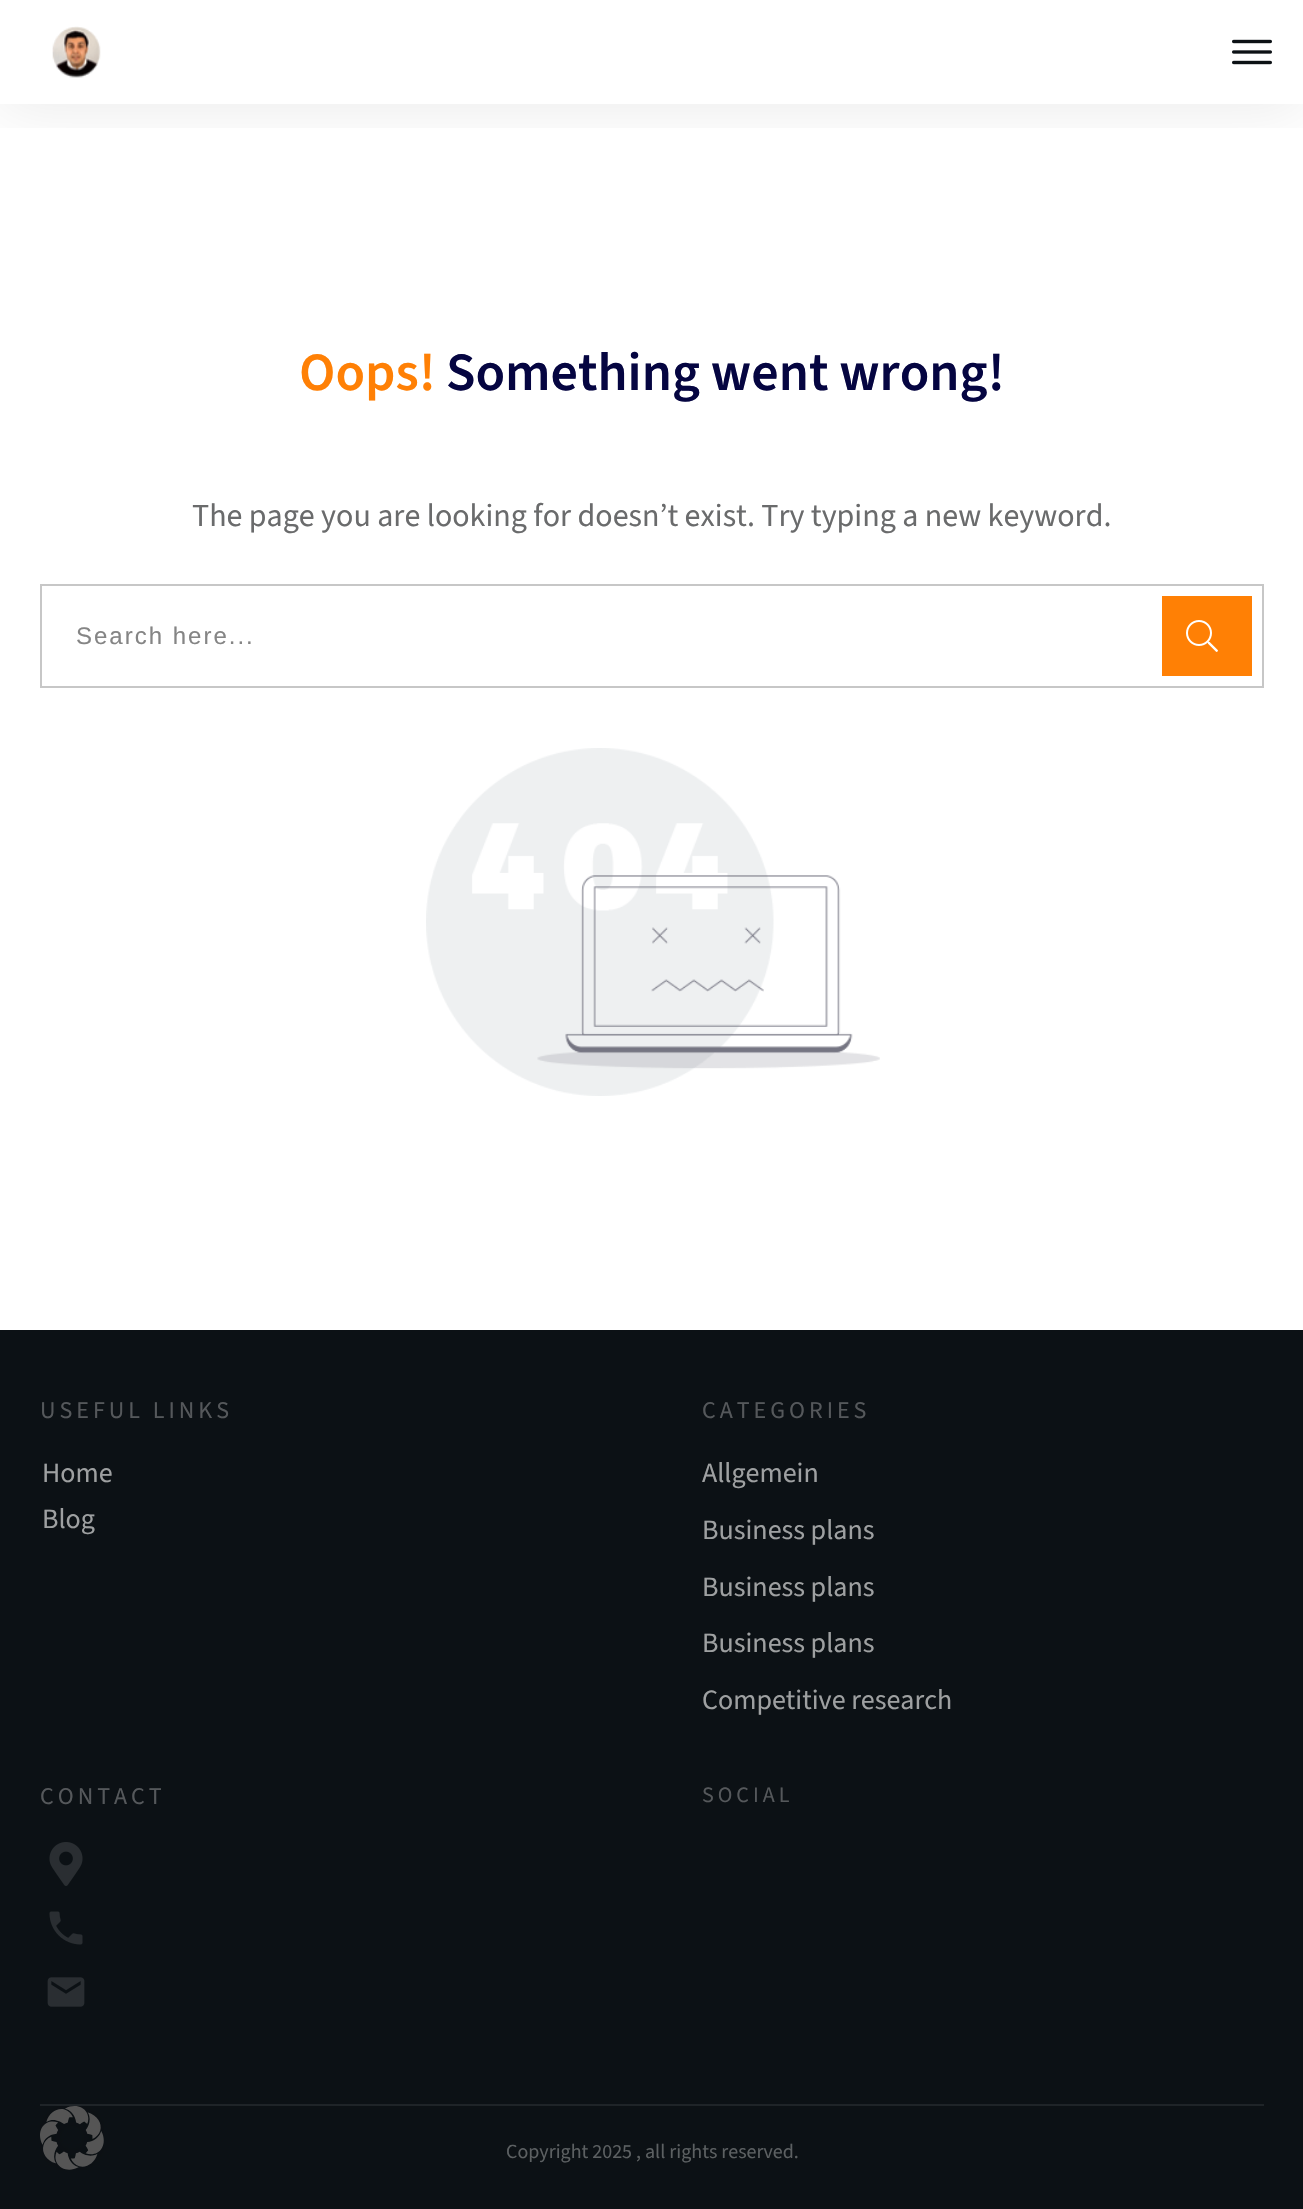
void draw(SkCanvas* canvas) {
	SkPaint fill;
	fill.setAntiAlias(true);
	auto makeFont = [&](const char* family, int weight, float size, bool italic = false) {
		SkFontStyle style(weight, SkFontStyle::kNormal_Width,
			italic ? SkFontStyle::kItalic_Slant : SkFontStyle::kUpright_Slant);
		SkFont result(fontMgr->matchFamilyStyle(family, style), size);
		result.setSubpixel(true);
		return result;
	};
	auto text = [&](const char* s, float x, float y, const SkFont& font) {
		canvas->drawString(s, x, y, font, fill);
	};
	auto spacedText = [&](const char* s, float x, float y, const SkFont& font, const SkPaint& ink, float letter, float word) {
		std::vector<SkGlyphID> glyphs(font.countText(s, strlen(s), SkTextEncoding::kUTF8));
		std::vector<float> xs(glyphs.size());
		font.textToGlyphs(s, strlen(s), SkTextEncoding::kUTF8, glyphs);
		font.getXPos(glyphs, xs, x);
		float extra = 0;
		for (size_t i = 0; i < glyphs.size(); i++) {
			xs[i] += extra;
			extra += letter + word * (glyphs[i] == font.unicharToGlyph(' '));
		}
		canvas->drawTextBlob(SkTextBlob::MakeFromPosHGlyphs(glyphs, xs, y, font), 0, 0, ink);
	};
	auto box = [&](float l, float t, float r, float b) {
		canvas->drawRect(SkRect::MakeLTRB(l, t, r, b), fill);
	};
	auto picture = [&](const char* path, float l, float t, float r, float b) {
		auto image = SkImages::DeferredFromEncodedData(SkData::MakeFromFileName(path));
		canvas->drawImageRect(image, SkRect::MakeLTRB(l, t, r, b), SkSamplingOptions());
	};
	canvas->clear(0xFFFFFFFF);
	canvas->save();
	canvas->clipRect(SkRect::MakeLTRB(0, 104, 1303, 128));
	fill.setColor(0x14000000);
	fill.setMaskFilter(SkMaskFilter::MakeBlur(kNormal_SkBlurStyle, 30));
	canvas->drawRect(SkRect::MakeLTRB(0, 4, 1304, 108), fill);
	fill.setMaskFilter(nullptr);
	canvas->restore();
	picture("image0.png", 52, 26, 101, 78);
	picture("image1.png", 1232, 39, 1272, 65);
	fill.setStyle(SkPaint::kStroke_Style);
	fill.setStrokeWidth(2);
	fill.setColor(0xFFC7C7C7);
	canvas->drawRect(SkRect::MakeLTRB(41, 585, 1263, 687), fill);
	fill.setStyle(SkPaint::kFill_Style);
	fill.setColor(0xFFFF8005);
	box(1162, 596, 1252, 676);
	picture("image2.png", 1186, 620, 1218, 652);
	picture("image3.png", 426, 748, 880, 1096);
	fill.setColor(0xFF0C1115);
	box(0, 1330, 1303, 2209);
	fill.setColor(0xFF1F2428);
	box(40, 2104, 1264, 2106);
	picture("image4.png", 49, 1842, 83, 1886);
	picture("image5.png", 49, 1911, 83, 1945);
	picture("image6.png", 47, 1977, 85, 2007);
	picture("image7.png", 40, 2106, 104, 2170);
	auto font1 = makeFont("Source Sans 3", 600, 54);
	fill.setColor(0xFFFF8005);
	text("Oops!", 299, 390, font1);
	fill.setColor(0xFF050541);
	text("Something went wrong!", 446, 390, font1);
	auto font2 = makeFont("Source Sans 3", 400, 32);
	fill.setColor(0xFF6A6B6C);
	text("The page you are looking for doesn’t exist. Try typing a new keyword.", 192, 526, font2);
	auto font3 = makeFont("Liberation Sans", 400, 24);
	fill.setColor(0xFF858585);
	spacedText("Search here...", 76, 644, font3, fill, 2, 0);
	auto font4 = makeFont("Source Sans 3", 400, 24);
	fill.setColor(0xFF55585B);
	spacedText("USEFUL LINKS", 40, 1418, font4, fill, 4, 0);
	auto font5 = makeFont("Source Sans 3", 400, 28);
	fill.setColor(0xFF9EA0A1);
	text("Home", 42, 1482, font5);
	text("Blog", 42, 1528, font5);
	fill.setColor(0xFF55585B);
	spacedText("CATEGORIES", 702, 1418, font4, fill, 4, 0);
	fill.setColor(0xFF9EA0A1);
	text("Allgemein", 702, 1482, font5);
	text("Business plans", 702, 1539, font5);
	text("Business plans", 702, 1596, font5);
	text("Business plans", 702, 1652, font5);
	text("Competitive research", 702, 1709, font5);
	fill.setColor(0xFF55585B);
	spacedText("CONTACT", 40, 1804, font4, fill, 4, 0);
	auto font6 = makeFont("Source Sans 3", 400, 22);
	spacedText("SOCIAL", 702, 1802, font6, fill, 4, 0);
	auto font7 = makeFont("Source Sans 3", 400, 20);
	fill.setColor(0xFF5C6062);
	text("Copyright 2025 , all rights reserved.", 506, 2158, font7);
}
